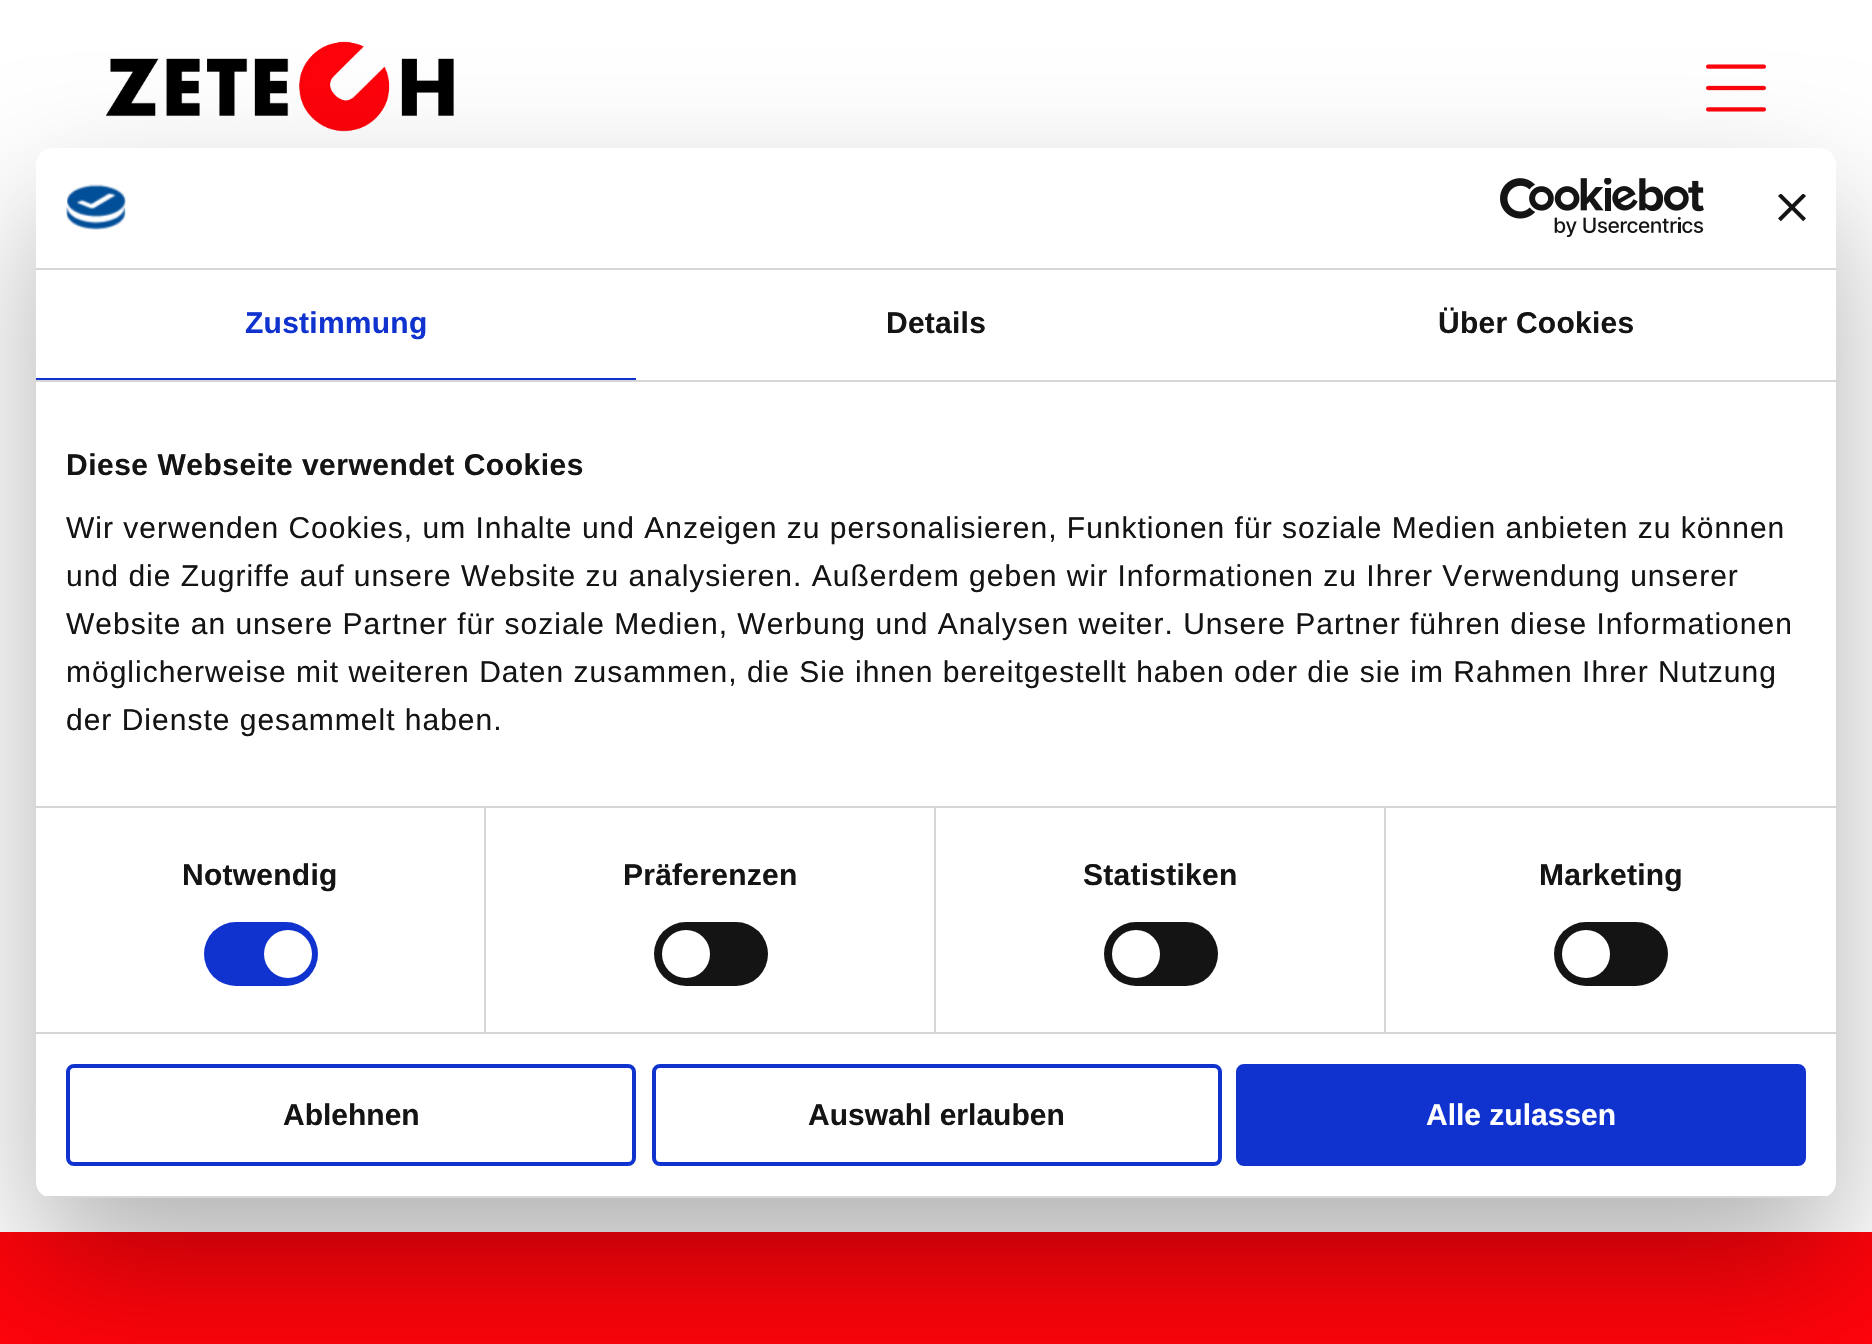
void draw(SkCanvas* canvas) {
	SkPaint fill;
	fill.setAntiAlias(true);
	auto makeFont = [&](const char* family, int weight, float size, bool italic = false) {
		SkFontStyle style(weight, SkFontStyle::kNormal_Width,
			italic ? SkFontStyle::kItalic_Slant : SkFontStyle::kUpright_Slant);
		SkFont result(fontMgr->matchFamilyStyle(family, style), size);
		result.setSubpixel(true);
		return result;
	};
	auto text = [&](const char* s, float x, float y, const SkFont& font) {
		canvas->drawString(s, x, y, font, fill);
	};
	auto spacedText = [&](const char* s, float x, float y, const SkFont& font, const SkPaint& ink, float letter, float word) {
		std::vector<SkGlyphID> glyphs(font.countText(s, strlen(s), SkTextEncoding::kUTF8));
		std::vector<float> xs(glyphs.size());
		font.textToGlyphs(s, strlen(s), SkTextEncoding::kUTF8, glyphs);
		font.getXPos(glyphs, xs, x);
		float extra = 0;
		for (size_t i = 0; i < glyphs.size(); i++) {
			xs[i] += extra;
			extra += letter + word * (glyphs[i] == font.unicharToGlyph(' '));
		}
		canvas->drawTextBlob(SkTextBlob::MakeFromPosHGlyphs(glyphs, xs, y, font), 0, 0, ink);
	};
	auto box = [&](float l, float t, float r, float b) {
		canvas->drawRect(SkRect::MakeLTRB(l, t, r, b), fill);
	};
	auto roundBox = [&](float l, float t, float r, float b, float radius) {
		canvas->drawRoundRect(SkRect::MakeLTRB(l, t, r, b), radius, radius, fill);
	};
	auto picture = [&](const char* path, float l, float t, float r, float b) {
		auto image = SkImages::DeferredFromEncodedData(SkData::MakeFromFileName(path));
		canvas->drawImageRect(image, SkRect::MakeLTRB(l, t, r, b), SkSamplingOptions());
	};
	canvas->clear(0xFFFFFFFF);
	picture("image0.png", 106, 41, 454, 132);
	picture("image1.png", 1706, 64, 1766, 112);
	fill.setColor(0xFFFF030B);
	box(0, 1232, 1872, 1344);
	fill.setColor(0x4D000000);
	fill.setMaskFilter(SkMaskFilter::MakeBlur(kNormal_SkBlurStyle, 68));
	canvas->drawRoundRect(SkRect::MakeLTRB(36, 212, 1836, 1262), 16, 16, fill);
	fill.setMaskFilter(nullptr);
	fill.setColor(0xFFFFFFFF);
	roundBox(36, 148, 1836, 1198, 16);
	fill.setColor(0xFFD6D6D6);
	box(36, 268, 1836, 270);
	picture("image2.png", 66, 184, 126, 230);
	picture("image3.png", 1500, 178, 1704, 238);
	picture("image4.png", 1778, 194, 1806, 222);
	box(36, 380, 1836, 382);
	fill.setColor(0xFF1032CF);
	box(36, 378, 636, 380);
	fill.setColor(0xFFD6D6D6);
	box(36, 806, 1836, 808);
	box(36, 1032, 1836, 1034);
	box(484, 808, 486, 1032);
	fill.setColor(0xFF1032CF);
	roundBox(204, 922, 318, 986, 32);
	fill.setColor(0xFFFFFFFF);
	canvas->drawCircle(288, 954, 24, fill);
	fill.setColor(0xFFD6D6D6);
	box(934, 808, 936, 1032);
	fill.setColor(0xFF141414);
	roundBox(654, 922, 768, 986, 32);
	fill.setColor(0xFFFFFFFF);
	canvas->drawCircle(686, 954, 24, fill);
	fill.setColor(0xFFD6D6D6);
	box(1384, 808, 1386, 1032);
	fill.setColor(0xFF141414);
	roundBox(1104, 922, 1218, 986, 32);
	fill.setColor(0xFFFFFFFF);
	canvas->drawCircle(1136, 954, 24, fill);
	fill.setColor(0xFF141414);
	roundBox(1554, 922, 1668, 986, 32);
	fill.setColor(0xFFFFFFFF);
	canvas->drawCircle(1586, 954, 24, fill);
	canvas->save();
	canvas->clipPath(SkPathBuilder().moveTo(52, 148).lineTo(1820, 148).cubicTo(1829, 148, 1836, 155, 1836, 164).lineTo(1836, 1182).cubicTo(1836, 1191, 1829, 1198, 1820, 1198).lineTo(52, 1198).cubicTo(43, 1198, 36, 1191, 36, 1182).lineTo(36, 164).cubicTo(36, 155, 43, 148, 52, 148).close().detach(), true);
	fill.setColor(0xFFD6D6D6);
	box(36, 1196, 1836, 1198);
	canvas->restore();
	fill.setStyle(SkPaint::kStroke_Style);
	fill.setStrokeWidth(4);
	fill.setColor(0xFF1032CF);
	canvas->drawRoundRect(SkRect::MakeLTRB(68, 1066, 634, 1164), 6, 6, fill);
	canvas->drawRoundRect(SkRect::MakeLTRB(654, 1066, 1220, 1164), 6, 6, fill);
	fill.setStyle(SkPaint::kFill_Style);
	canvas->drawRoundRect(SkRect::MakeLTRB(1238, 1066, 1804, 1164), 6, 6, fill);
	fill.setStyle(SkPaint::kStroke_Style);
	canvas->drawRoundRect(SkRect::MakeLTRB(1238, 1066, 1804, 1164), 6, 6, fill);
	auto font1 = makeFont("Liberation Sans", 700, 30);
	fill.setStyle(SkPaint::kFill_Style);
	spacedText("Zustimmung", 245, 333, font1, fill, 0.25f, 0);
	fill.setColor(0xFF141414);
	spacedText("Details", 886, 333, font1, fill, 0.25f, 0);
	spacedText("Über Cookies", 1438, 333, font1, fill, 0.25f, 0);
	spacedText("Diese Webseite verwendet Cookies", 66, 475, font1, fill, 0.5f, 0);
	auto font2 = makeFont("Liberation Sans", 400, 30);
	spacedText("Wir verwenden Cookies, um Inhalte und Anzeigen zu personalisieren, Funktionen für soziale Medien anbieten zu können", 66, 538, font2, fill, 1, 0);
	spacedText("und die Zugriffe auf unsere Website zu analysieren. Außerdem geben wir Informationen zu Ihrer Verwendung unserer", 66, 586, font2, fill, 1, 0);
	spacedText("Website an unsere Partner für soziale Medien, Werbung und Analysen weiter. Unsere Partner führen diese Informationen", 66, 634, font2, fill, 1, 0);
	spacedText("möglicherweise mit weiteren Daten zusammen, die Sie ihnen bereitgestellt haben oder die sie im Rahmen Ihrer Nutzung", 66, 682, font2, fill, 1, 0);
	spacedText("der Dienste gesammelt haben.", 66, 730, font2, fill, 1, 0);
	spacedText("Notwendig", 182, 885, font1, fill, 0.25f, 0);
	spacedText("Präferenzen", 623, 885, font1, fill, 0.25f, 0);
	spacedText("Statistiken", 1083, 885, font1, fill, 0.25f, 0);
	spacedText("Marketing", 1539, 885, font1, fill, 0.25f, 0);
	text("Ablehnen", 283, 1125, font1);
	text("Auswahl erlauben", 808, 1125, font1);
	fill.setColor(0xFFFFFFFF);
	text("Alle zulassen", 1426, 1125, font1);
}
